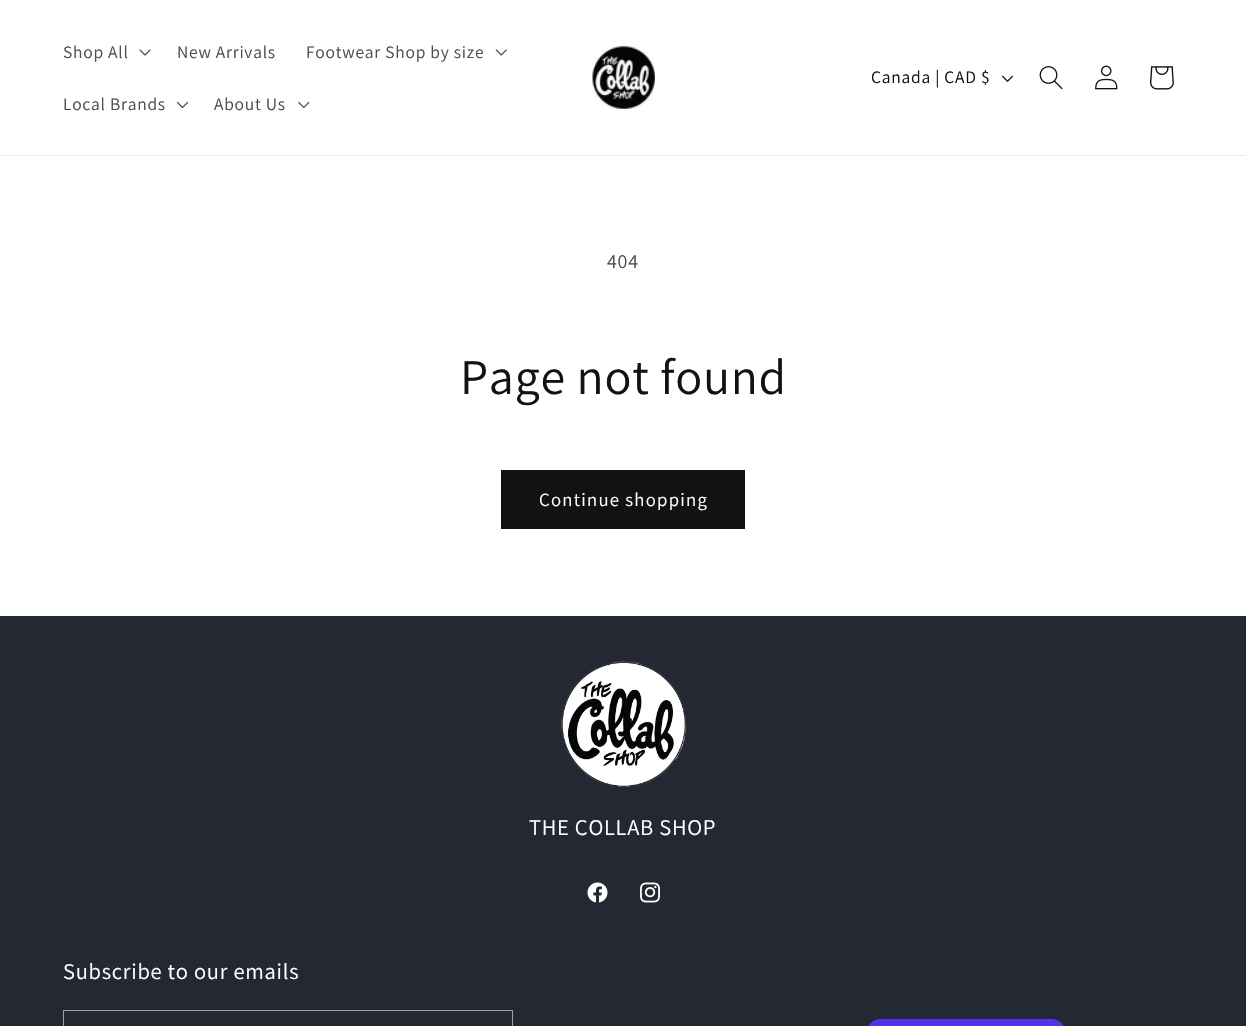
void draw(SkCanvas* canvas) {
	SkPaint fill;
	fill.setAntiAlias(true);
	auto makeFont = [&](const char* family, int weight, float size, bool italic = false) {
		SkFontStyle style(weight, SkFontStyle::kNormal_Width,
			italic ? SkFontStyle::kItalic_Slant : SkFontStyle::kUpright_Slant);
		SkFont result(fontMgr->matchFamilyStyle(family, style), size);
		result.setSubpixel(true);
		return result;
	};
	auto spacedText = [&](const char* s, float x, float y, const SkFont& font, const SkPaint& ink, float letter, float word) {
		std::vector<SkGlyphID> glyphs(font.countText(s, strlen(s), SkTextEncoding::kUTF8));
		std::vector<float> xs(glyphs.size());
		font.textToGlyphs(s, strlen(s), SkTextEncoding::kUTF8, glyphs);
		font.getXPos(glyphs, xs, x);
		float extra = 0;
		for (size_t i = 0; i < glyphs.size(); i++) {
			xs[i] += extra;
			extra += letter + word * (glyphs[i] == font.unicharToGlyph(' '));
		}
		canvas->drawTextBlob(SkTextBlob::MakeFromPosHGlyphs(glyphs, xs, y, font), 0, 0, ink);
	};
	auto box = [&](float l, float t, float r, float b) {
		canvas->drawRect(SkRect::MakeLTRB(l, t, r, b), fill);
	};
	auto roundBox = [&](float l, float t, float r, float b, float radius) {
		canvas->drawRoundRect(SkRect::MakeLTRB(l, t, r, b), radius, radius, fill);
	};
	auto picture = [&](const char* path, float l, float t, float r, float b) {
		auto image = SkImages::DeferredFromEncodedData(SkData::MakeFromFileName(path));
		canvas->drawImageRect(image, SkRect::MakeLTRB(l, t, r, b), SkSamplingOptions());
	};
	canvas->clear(0xFFFFFFFF);
	fill.setColor(0xFFECECEC);
	box(0, 155, 1246, 156);
	picture("image0.png", 139, 49, 151, 56);
	picture("image1.png", 495, 49, 507, 56);
	picture("image2.png", 176, 101, 189, 109);
	picture("image3.png", 298, 101, 310, 109);
	picture("image4.png", 592, 46, 655, 109);
	picture("image5.png", 1001, 75, 1014, 82);
	picture("image6.png", 1039, 66, 1063, 90);
	picture("image7.png", 1095, 65, 1118, 90);
	picture("image8.png", 1150, 66, 1174, 90);
	fill.setColor(0xFF121212);
	box(501, 470, 745, 529);
	fill.setColor(0xFF242833);
	box(0, 616, 1246, 1026);
	picture("image9.png", 561, 661, 687, 787);
	picture("image10.png", 587, 882, 608, 903);
	picture("image11.png", 640, 882, 660, 903);
	fill.setStyle(SkPaint::kStroke_Style);
	fill.setStrokeWidth(1);
	fill.setColor(0xFF9C9EA3);
	canvas->drawRect(SkRect::MakeLTRB(63.5f, 1010.5f, 512.5f, 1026.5f), fill);
	fill.setStyle(SkPaint::kFill_Style);
	fill.setColor(0xFF5433EB);
	roundBox(866, 1019, 1066, 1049, 22.5f);
	auto font1 = makeFont("Assistant", 400, 17.5f);
	fill.setColor(0xFF4D4D4D);
	spacedText("Shop All", 63, 58, font1, fill, 0.75f, 0);
	spacedText("New Arrivals", 177, 58, font1, fill, 0.75f, 0);
	spacedText("Footwear Shop by size", 306, 58, font1, fill, 0.75f, 0);
	spacedText("Local Brands", 63, 110, font1, fill, 0.75f, 0);
	spacedText("About Us", 214, 110, font1, fill, 0.75f, 0);
	fill.setColor(0xFF121212);
	spacedText("Canada | CAD $", 871, 83, font1, fill, 0.75f, 0);
	auto font2 = makeFont("Assistant", 400, 20);
	fill.setColor(0xFF4D4D4D);
	spacedText("404", 607, 268, font2, fill, 0.75f, 0);
	auto font3 = makeFont("Assistant", 400, 50);
	fill.setColor(0xFF121212);
	spacedText("Page not found", 460, 394, font3, fill, 0.75f, 0);
	auto font4 = makeFont("Assistant", 400, 18.75f);
	fill.setColor(0xFFFFFFFF);
	spacedText("Continue shopping", 539, 506, font4, fill, 1.25f, 0);
	auto font5 = makeFont("Assistant", 400, 22.5f);
	spacedText("THE COLLAB SHOP", 529, 835, font5, fill, 0.75f, 0);
	spacedText("Subscribe to our emails", 63, 979, font5, fill, 0.75f, 0);
}
